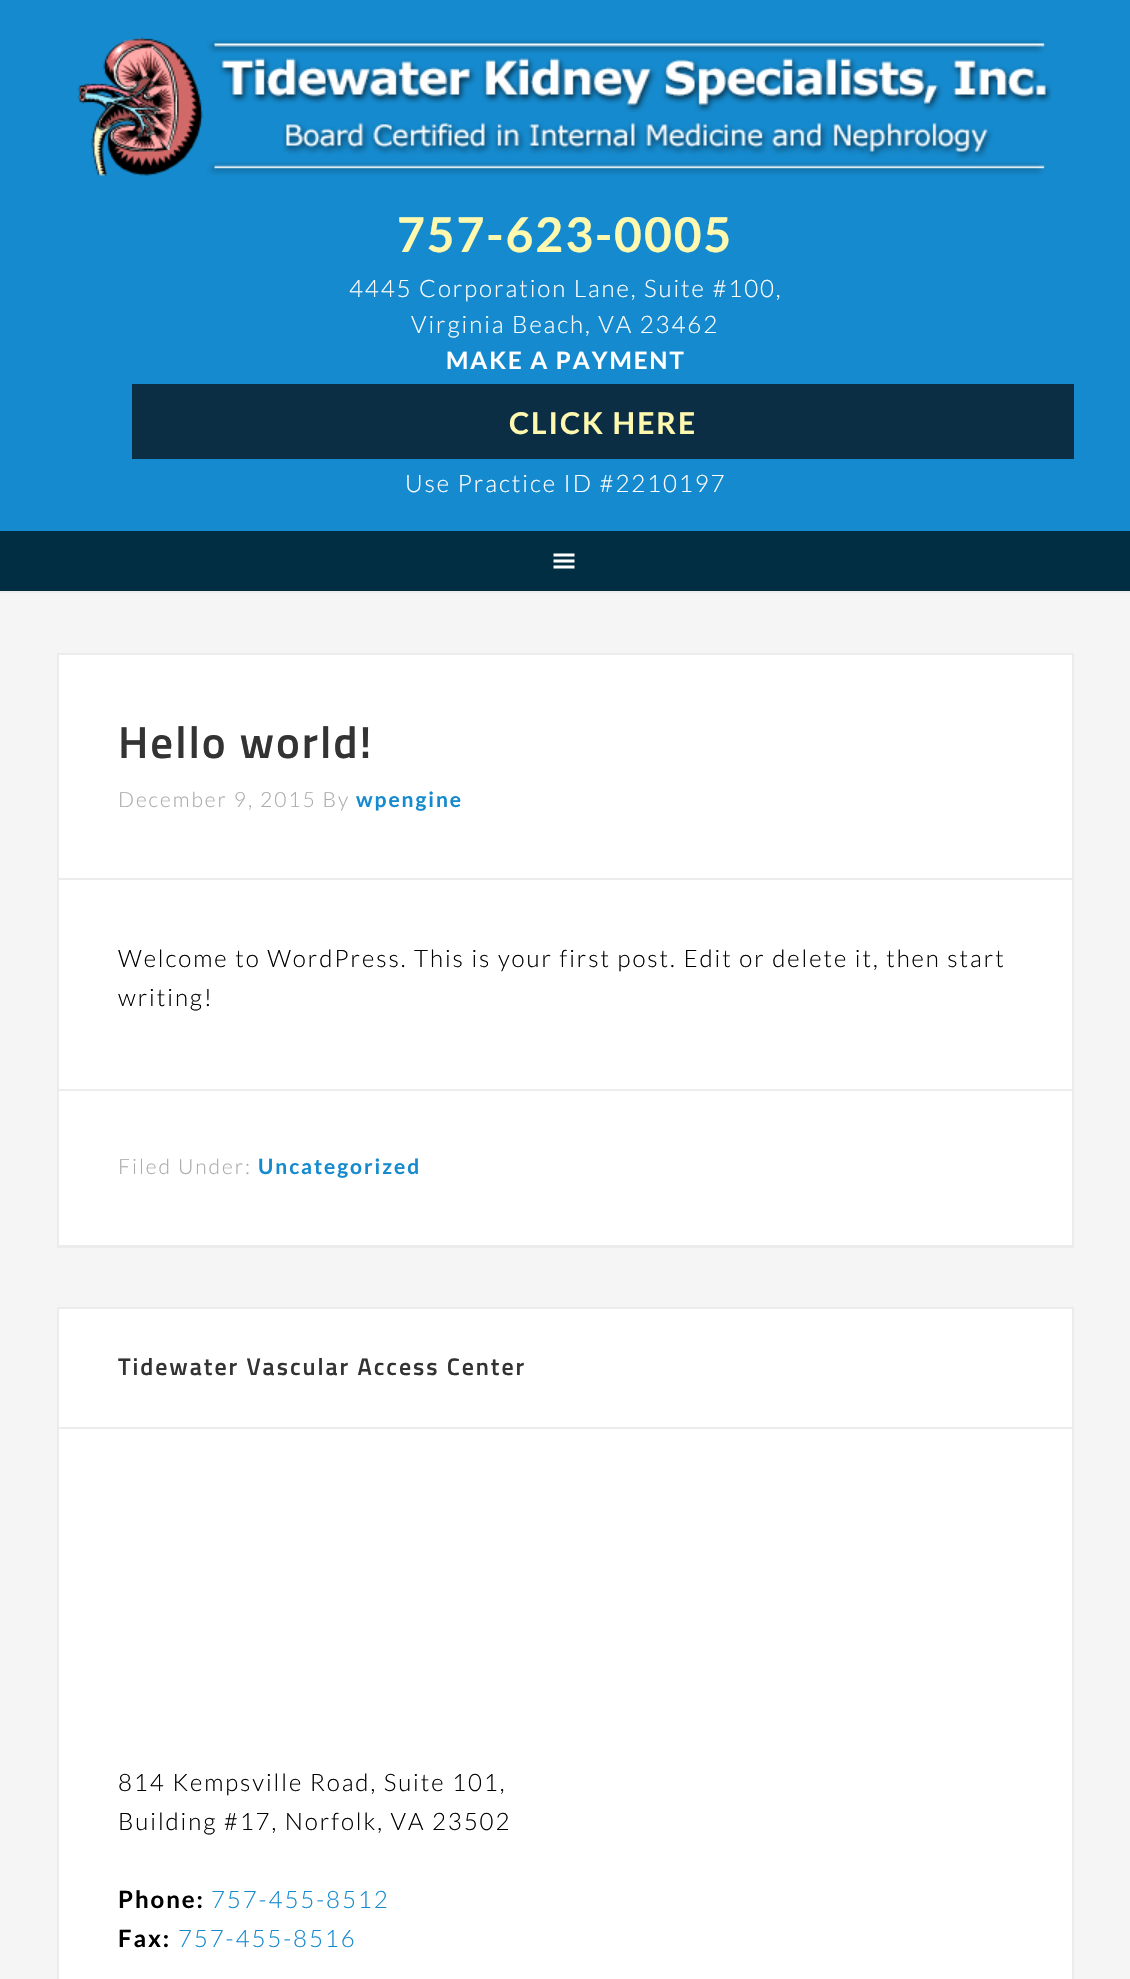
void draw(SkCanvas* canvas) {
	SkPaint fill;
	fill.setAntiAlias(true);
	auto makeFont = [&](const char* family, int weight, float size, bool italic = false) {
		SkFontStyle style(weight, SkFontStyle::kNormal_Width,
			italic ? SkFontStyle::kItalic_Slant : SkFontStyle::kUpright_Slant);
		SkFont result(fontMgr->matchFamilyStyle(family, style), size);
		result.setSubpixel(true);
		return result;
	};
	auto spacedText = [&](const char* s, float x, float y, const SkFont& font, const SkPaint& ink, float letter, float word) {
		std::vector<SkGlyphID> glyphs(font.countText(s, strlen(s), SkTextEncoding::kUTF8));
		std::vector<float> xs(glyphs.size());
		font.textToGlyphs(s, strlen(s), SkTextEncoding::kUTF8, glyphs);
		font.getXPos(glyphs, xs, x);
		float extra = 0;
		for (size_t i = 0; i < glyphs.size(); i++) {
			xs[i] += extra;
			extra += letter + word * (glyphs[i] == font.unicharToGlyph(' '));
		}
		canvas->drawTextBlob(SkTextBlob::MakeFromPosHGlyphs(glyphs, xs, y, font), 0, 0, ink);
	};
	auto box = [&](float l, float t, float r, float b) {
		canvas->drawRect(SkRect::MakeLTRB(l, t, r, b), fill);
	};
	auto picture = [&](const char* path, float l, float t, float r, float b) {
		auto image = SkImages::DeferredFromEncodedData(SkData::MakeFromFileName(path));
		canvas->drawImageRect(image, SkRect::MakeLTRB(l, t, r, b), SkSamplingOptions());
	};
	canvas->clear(0xFF158ACE);
	picture("image0.png", 77, 37, 1052, 176);
	fill.setColor(0xFF0B2E44);
	box(132, 384, 1074, 459);
	fill.setColor(0xFF012E43);
	box(0, 531, 1130, 591);
	picture("image1.png", 553, 553, 575, 569);
	fill.setColor(0xFFF5F5F5);
	box(0, 593, 1130, 1979);
	fill.setColor(0xFFECECEC);
	box(0, 591, 1130, 593);
	box(57, 1247, 1074, 1248);
	fill.setColor(0xFFFFFFFF);
	canvas->drawRect(SkRect::MakeLTRB(58, 654, 1073, 1246), fill);
	fill.setStyle(SkPaint::kStroke_Style);
	fill.setStrokeWidth(2);
	fill.setColor(0xFFECECEC);
	canvas->drawRect(SkRect::MakeLTRB(58, 654, 1073, 1246), fill);
	fill.setStyle(SkPaint::kFill_Style);
	box(59, 878, 1073, 880);
	box(59, 1089, 1073, 1091);
	fill.setColor(0xFFFFFFFF);
	canvas->drawRect(SkRect::MakeLTRB(58, 1308, 1073, 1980), fill);
	fill.setStyle(SkPaint::kStroke_Style);
	fill.setColor(0xFFECECEC);
	canvas->drawRect(SkRect::MakeLTRB(58, 1308, 1073, 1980), fill);
	fill.setStyle(SkPaint::kFill_Style);
	box(59, 1427, 1073, 1429);
	auto font1 = makeFont("Lato", 700, 48);
	fill.setColor(0xFFFFF9B0);
	spacedText("757-623-0005", 397, 252, font1, fill, 1.95f, 0);
	auto font2 = makeFont("Lato", 300, 24);
	fill.setColor(0xFFFFFFFF);
	spacedText("4445 Corporation Lane, Suite #100,", 349, 297, font2, fill, 1.95f, 0);
	spacedText("Virginia Beach, VA 23462", 411, 333, font2, fill, 1.95f, 0);
	auto font3 = makeFont("Lato", 700, 24);
	spacedText("MAKE A PAYMENT", 446, 369, font3, fill, 1.95f, 0);
	auto font4 = makeFont("Lato", 700, 30);
	fill.setColor(0xFFFFF9B0);
	spacedText("CLICK HERE", 509, 434, font4, fill, 1.95f, 0);
	fill.setColor(0xFFFFFFFF);
	spacedText("Use Practice ID #2210197", 405, 492, font2, fill, 1.95f, 0);
	auto font5 = makeFont("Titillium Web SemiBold", 600, 45);
	fill.setColor(0xFF333333);
	spacedText("Hello world!", 118, 758, font5, fill, 1.95f, 0);
	auto font6 = makeFont("Lato", 300, 21);
	fill.setColor(0xFFAAAAAA);
	spacedText("December 9, 2015 By", 118, 807, font6, fill, 1.95f, 0);
	auto font7 = makeFont("Lato", 700, 21);
	fill.setColor(0xFF158ACE);
	spacedText("wpengine", 356, 807, font7, fill, 1.95f, 0);
	fill.setColor(0xFF000000);
	spacedText("Welcome to WordPress. This is your first post. Edit or delete it, then start", 118, 967, font2, fill, 1.95f, 0);
	spacedText("writing!", 118, 1006, font2, fill, 1.95f, 0);
	fill.setColor(0xFFAAAAAA);
	spacedText("Filed Under:", 118, 1174, font6, fill, 1.95f, 0);
	fill.setColor(0xFF158ACE);
	spacedText("Uncategorized", 258, 1174, font7, fill, 1.95f, 0);
	auto font8 = makeFont("Titillium Web SemiBold", 600, 24);
	fill.setColor(0xFF333333);
	spacedText("Tidewater Vascular Access Center", 118, 1375, font8, fill, 1.95f, 0);
	fill.setColor(0xFF000000);
	spacedText("814 Kempsville Road, Suite 101,", 118, 1791, font2, fill, 1.95f, 0);
	spacedText("Building #17, Norfolk, VA 23502", 118, 1830, font2, fill, 1.95f, 0);
	spacedText("Phone:", 118, 1908, font3, fill, 1.95f, 0);
	fill.setColor(0xFF158ACE);
	spacedText("757-455-8512", 211, 1908, font2, fill, 1.95f, 0);
	fill.setColor(0xFF000000);
	spacedText("Fax:", 118, 1947, font3, fill, 1.95f, 0);
	fill.setColor(0xFF158ACE);
	spacedText("757-455-8516", 178, 1947, font2, fill, 1.95f, 0);
}
